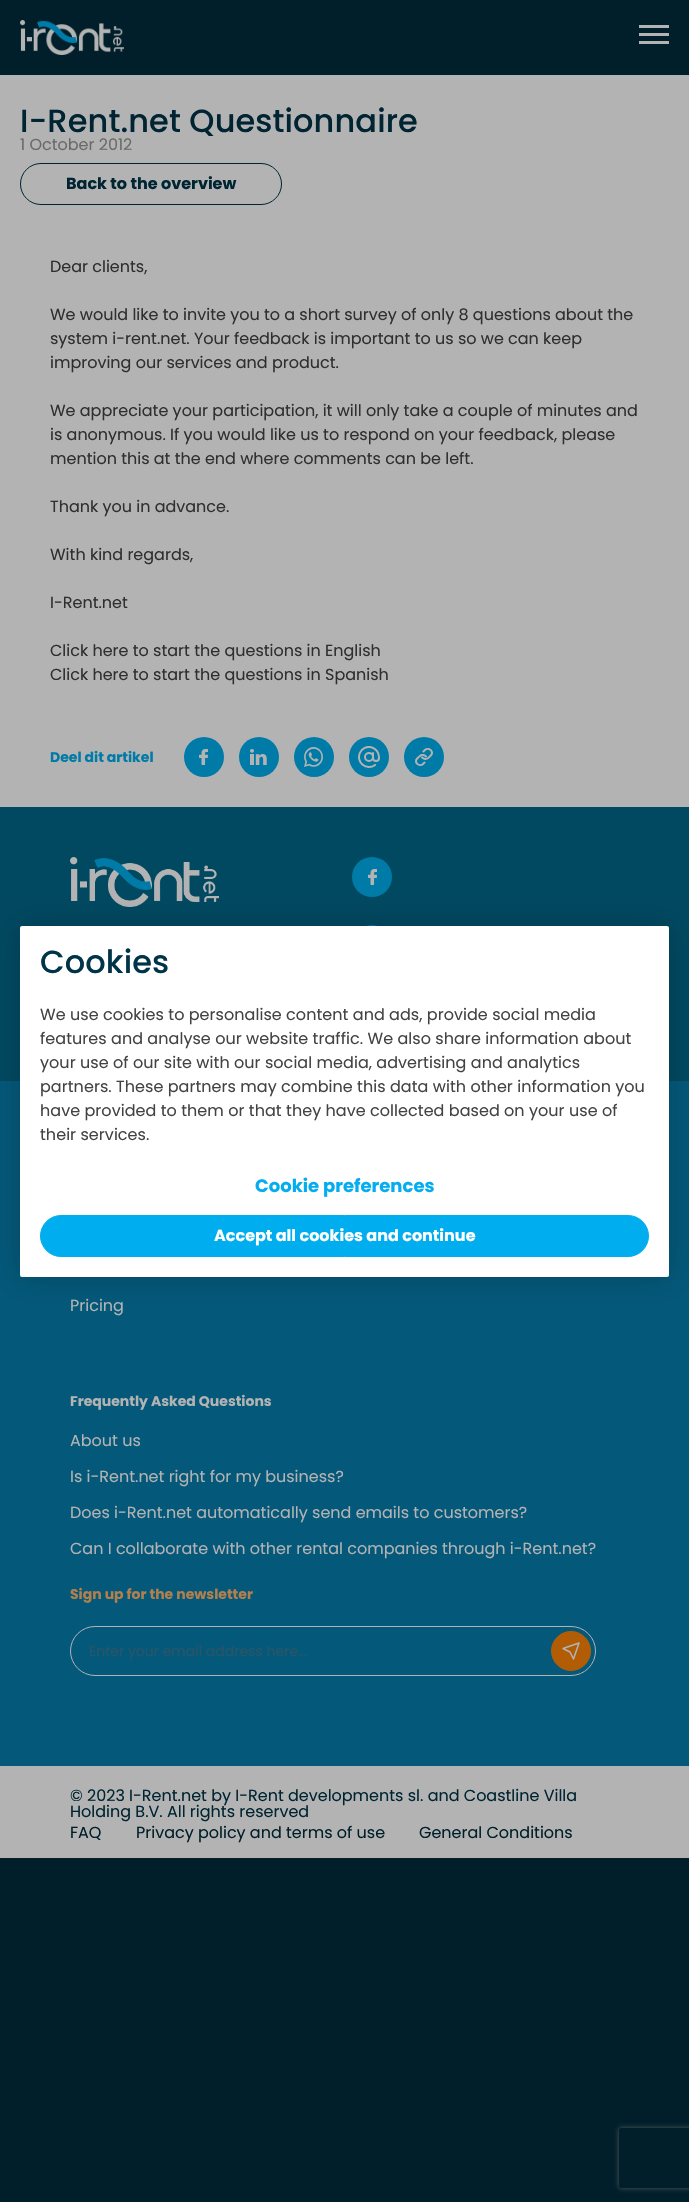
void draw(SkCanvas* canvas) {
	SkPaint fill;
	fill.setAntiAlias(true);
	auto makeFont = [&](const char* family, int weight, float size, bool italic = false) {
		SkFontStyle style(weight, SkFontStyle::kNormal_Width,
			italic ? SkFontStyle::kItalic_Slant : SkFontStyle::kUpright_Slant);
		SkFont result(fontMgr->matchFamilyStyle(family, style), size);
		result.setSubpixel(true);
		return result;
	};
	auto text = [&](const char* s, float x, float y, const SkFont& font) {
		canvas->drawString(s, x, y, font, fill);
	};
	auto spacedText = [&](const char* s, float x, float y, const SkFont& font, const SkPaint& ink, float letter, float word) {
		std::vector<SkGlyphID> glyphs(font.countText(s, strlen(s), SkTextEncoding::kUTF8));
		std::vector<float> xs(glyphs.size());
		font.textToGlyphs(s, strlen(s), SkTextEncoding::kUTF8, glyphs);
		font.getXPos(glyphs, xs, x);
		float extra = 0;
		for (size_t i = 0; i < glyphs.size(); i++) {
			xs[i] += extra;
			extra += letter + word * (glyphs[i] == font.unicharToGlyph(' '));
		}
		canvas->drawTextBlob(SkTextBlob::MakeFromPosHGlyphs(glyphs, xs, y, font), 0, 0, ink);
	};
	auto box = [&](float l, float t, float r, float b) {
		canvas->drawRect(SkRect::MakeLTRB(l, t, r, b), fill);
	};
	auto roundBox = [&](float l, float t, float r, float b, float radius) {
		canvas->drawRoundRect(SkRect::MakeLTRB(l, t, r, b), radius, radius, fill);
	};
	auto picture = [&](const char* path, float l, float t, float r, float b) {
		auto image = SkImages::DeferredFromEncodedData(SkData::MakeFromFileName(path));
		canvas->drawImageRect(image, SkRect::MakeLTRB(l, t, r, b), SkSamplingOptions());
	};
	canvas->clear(0xFF001F2B);
	picture("image0.png", 20, 20, 124, 55);
	fill.setColor(0xFFB3B3B3);
	box(639, 25, 669, 28);
	box(639, 33, 669, 36);
	box(639, 41, 669, 44);
	box(0, 75, 689, 807);
	fill.setStyle(SkPaint::kStroke_Style);
	fill.setStrokeWidth(1);
	fill.setColor(0xFF002432);
	canvas->drawRoundRect(SkRect::MakeLTRB(20.5f, 163.5f, 281.5f, 204.5f), 20.5f, 20.5f, fill);
	fill.setStyle(SkPaint::kFill_Style);
	fill.setColor(0xFF007AA7);
	canvas->drawCircle(204, 757, 20, fill);
	picture("image1.png", 199, 749, 208, 765);
	canvas->drawCircle(259, 757, 20, fill);
	picture("image2.png", 250, 749, 267, 765);
	canvas->drawCircle(314, 757, 20, fill);
	picture("image3.png", 304, 747, 323, 767);
	canvas->drawCircle(369, 757, 20, fill);
	picture("image4.png", 358, 746, 380, 768);
	canvas->drawCircle(424, 757, 20, fill);
	picture("image5.png", 415, 748, 433, 766);
	fill.setColor(0xFF04587A);
	box(0, 1081, 689, 1766);
	fill.setColor(0xFF014961);
	box(0, 807, 689, 1081);
	picture("image6.png", 70, 857, 219, 907);
	fill.setColor(0xFF007AA7);
	canvas->drawCircle(372, 877, 20, fill);
	picture("image7.png", 368, 869, 377, 885);
	canvas->drawCircle(372, 945, 20, fill);
	fill.setColor(0x33000000);
	fill.setMaskFilter(SkMaskFilter::MakeBlur(kNormal_SkBlurStyle, 15));
	canvas->drawRoundRect(SkRect::MakeLTRB(20, 926, 669, 1277), 2, 2, fill);
	fill.setMaskFilter(nullptr);
	fill.setColor(0xFFFFFFFF);
	roundBox(20, 926, 669, 1277, 2);
	fill.setColor(0xFF00AEEF);
	canvas->drawRoundRect(SkRect::MakeLTRB(40.5f, 1215.5f, 648.5f, 1256.5f), 20.5f, 20.5f, fill);
	fill.setStyle(SkPaint::kStroke_Style);
	canvas->drawRoundRect(SkRect::MakeLTRB(40.5f, 1215.5f, 648.5f, 1256.5f), 20.5f, 20.5f, fill);
	fill.setColor(0xFFB3B3B3);
	canvas->drawRoundRect(SkRect::MakeLTRB(70.5f, 1626.5f, 595.5f, 1675.5f), 24.5f, 24.5f, fill);
	fill.setStyle(SkPaint::kFill_Style);
	fill.setColor(0xFFB35C06);
	canvas->drawCircle(571, 1651, 19.5f, fill);
	fill.setStyle(SkPaint::kStroke_Style);
	canvas->drawCircle(571, 1651, 19.5f, fill);
	fill.setStrokeWidth(1.5f);
	fill.setStrokeCap(SkPaint::kRound_Cap);
	fill.setStrokeJoin(SkPaint::kRound_Join);
	fill.setColor(0xFFB3B3B3);
	canvas->drawPath(SkPathBuilder().moveTo(579, 1643).lineTo(573.5f, 1659).lineTo(570, 1652).lineTo(563, 1648.5f).close().detach(), fill);
	canvas->save();
	canvas->clipPath(SkPathBuilder(SkPathFillType::kEvenOdd).moveTo(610, 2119).lineTo(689, 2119).lineTo(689, 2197).lineTo(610, 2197).close().moveTo(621, 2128).lineTo(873, 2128).cubicTo(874, 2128, 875, 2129, 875, 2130).lineTo(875, 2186).cubicTo(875, 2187, 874, 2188, 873, 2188).lineTo(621, 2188).cubicTo(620, 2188, 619, 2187, 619, 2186).lineTo(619, 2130).cubicTo(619, 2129, 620, 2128, 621, 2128).close().detach(), true);
	fill.setStyle(SkPaint::kFill_Style);
	fill.setColor(0xFF5A5A5A);
	fill.setMaskFilter(SkMaskFilter::MakeBlur(kNormal_SkBlurStyle, 2.5f));
	canvas->drawRoundRect(SkRect::MakeLTRB(619, 2128, 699, 2188), 2, 2, fill);
	fill.setMaskFilter(nullptr);
	canvas->restore();
	fill.setColor(0xFFB3B3B3);
	box(0, 1766, 689, 1858);
	auto font1 = makeFont("Poppins", 500, 32);
	fill.setColor(0xFF002432);
	spacedText("I-Rent.net Questionnaire", 20, 132, font1, fill, 0.1f, 0);
	auto font2 = makeFont("Poppins", 400, 16);
	fill.setColor(0xFF6A6A6A);
	text("1 October 2012", 20, 150, font2);
	auto font3 = makeFont("Poppins", 700, 16);
	fill.setColor(0xFF002432);
	text("Back to the overview", 66, 189, font3);
	fill.setColor(0xFF2F2F2F);
	text("Dear clients,", 50, 272, font2);
	text("We would like to invite you to a short survey of only 8 questions about the", 50, 320, font2);
	text("system i-rent.net. Your feedback is important to us so we can keep", 50, 344, font2);
	text("improving our services and product.", 50, 368, font2);
	text("We appreciate your participation, it will only take a couple of minutes and", 50, 416, font2);
	text("is anonymous. If you would like us to respond on your feedback, please", 50, 440, font2);
	text("mention this at the end where comments can be left.", 50, 464, font2);
	text("Thank you in advance.", 50, 512, font2);
	text("With kind regards,", 50, 560, font2);
	text("I-Rent.net", 50, 608, font2);
	text("Click here to start the questions in English", 50, 656, font2);
	text("Click here to start the questions in Spanish", 50, 680, font2);
	auto font4 = makeFont("Poppins", 700, 14);
	fill.setColor(0xFF007AA7);
	text("Deel dit artikel", 50, 762, font4);
	fill.setColor(0xFF003448);
	spacedText("Cookies", 40, 973, font1, fill, 0.1f, 0);
	fill.setColor(0xFF434343);
	spacedText("We use cookies to personalise content and ads, provide social media", 40, 1020, font2, fill, 0.05f, 0);
	spacedText("features and analyse our website traffic. We also share information about", 40, 1044, font2, fill, 0.05f, 0);
	spacedText("your use of our site with our social media, advertising and analytics", 40, 1068, font2, fill, 0.05f, 0);
	spacedText("partners. These partners may combine this data with other information you", 40, 1092, font2, fill, 0.05f, 0);
	spacedText("have provided to them or that they have collected based on your use of", 40, 1116, font2, fill, 0.05f, 0);
	spacedText("their services.", 40, 1140, font2, fill, 0.05f, 0);
	auto font5 = makeFont("Poppins", 700, 18);
	fill.setColor(0xFF04ADEF);
	text("Cookie preferences", 255, 1192, font5);
	fill.setColor(0xFFFFFFFF);
	text("Accept all cookies and continue", 214, 1241, font3);
	fill.setColor(0xFFB3B3B3);
	text("Pricing", 70, 1311, font2);
	text("Frequently Asked Questions", 70, 1406, font4);
	text("About us", 70, 1446, font2);
	text("Is i-Rent.net right for my business?", 70, 1482, font2);
	text("Does i-Rent.net automatically send emails to customers?", 70, 1518, font2);
	text("Can I collaborate with other rental companies through i-Rent.net?", 70, 1554, font2);
	fill.setColor(0xFFB37F4D);
	text("Sign up for the newsletter", 70, 1599, font4);
	auto font6 = makeFont("Poppins", 400, 14);
	fill.setColor(0xFF2B5566);
	text("Enter your email address here...", 89, 1656, font6);
	fill.setColor(0xFF002432);
	text("© 2023 I-Rent.net by I-Rent developments sl. and Coastline Villa", 70, 1801, font2);
	text("Holding B.V. All rights reserved", 70, 1817, font2);
	fill.setColor(0xFF001F29);
	text("FAQ", 70, 1838, font2);
	text("Privacy policy and terms of use", 136, 1838, font2);
	text("General Conditions", 419, 1838, font2);
}
